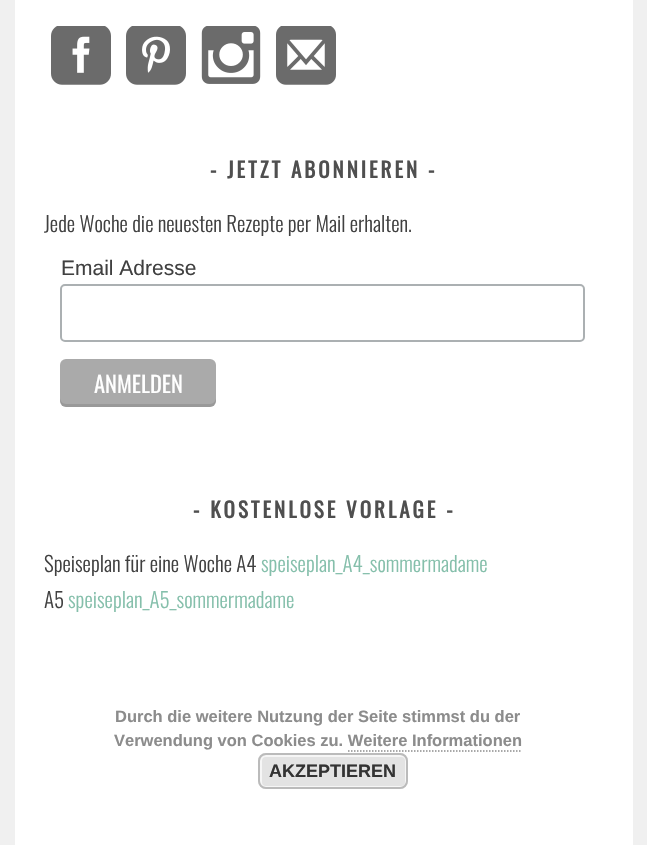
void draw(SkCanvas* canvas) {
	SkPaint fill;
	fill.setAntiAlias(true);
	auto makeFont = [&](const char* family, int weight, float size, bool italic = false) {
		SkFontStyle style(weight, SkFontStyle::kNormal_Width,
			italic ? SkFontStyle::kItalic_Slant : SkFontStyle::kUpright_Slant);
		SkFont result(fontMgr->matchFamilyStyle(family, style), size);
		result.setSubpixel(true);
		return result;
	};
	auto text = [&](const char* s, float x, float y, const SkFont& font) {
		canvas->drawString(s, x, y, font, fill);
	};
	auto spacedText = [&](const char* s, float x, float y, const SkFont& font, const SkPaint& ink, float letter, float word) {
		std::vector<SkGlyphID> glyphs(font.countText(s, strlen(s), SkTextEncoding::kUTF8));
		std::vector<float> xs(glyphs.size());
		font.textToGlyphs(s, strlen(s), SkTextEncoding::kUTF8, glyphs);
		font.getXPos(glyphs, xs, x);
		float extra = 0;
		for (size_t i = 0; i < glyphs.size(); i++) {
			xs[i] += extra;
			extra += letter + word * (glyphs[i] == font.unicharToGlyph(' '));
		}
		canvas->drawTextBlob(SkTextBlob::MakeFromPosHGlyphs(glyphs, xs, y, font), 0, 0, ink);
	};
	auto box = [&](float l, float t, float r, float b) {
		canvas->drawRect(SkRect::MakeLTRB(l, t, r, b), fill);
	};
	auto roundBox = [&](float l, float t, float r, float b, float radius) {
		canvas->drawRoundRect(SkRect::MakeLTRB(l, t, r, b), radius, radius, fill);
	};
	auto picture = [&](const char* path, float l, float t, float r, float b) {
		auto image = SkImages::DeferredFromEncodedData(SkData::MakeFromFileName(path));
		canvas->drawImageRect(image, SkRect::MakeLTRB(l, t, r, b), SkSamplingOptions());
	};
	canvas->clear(0xFFF0F0F0);
	fill.setColor(0xFFFFFFFF);
	box(15, 0, 633, 845);
	picture("image0.png", 51, 26, 111, 85);
	picture("image1.png", 126, 26, 186, 85);
	picture("image2.png", 201, 26, 261, 84);
	picture("image3.png", 276, 26, 336, 85);
	fill.setStyle(SkPaint::kStroke_Style);
	fill.setStrokeWidth(2);
	fill.setColor(0xFFABB0B2);
	canvas->drawRoundRect(SkRect::MakeLTRB(61, 285, 584, 341), 4, 4, fill);
	fill.setStyle(SkPaint::kFill_Style);
	fill.setColor(0xFFAAAAAA);
	roundBox(60, 359, 216, 407, 6);
	fill.setColor(0x1A000000);
	canvas->drawPath(SkPathBuilder().moveTo(60, 398).lineTo(60, 401).cubicTo(60, 404, 63, 407, 66, 407).lineTo(210, 407).cubicTo(213, 407, 216, 404, 216, 401).lineTo(216, 398).cubicTo(216, 401, 213, 404, 210, 404).lineTo(66, 404).cubicTo(63, 404, 60, 401, 60, 398).close().detach(), fill);
	fill.setStyle(SkPaint::kStroke_Style);
	fill.setStrokeWidth(1.5f);
	fill.setColor(0xFF8C8C8C);
	fill.setPathEffect(SkDashPathEffect::Make({{1.5f, 1.5f}}, 0));
	canvas->drawPath(SkPathBuilder().moveTo(348, 751).lineTo(522, 751).detach(), fill);
	fill.setPathEffect(nullptr);
	fill.setStyle(SkPaint::kFill_Style);
	fill.setColor(0xFFE3E3E3);
	roundBox(258, 753, 408, 789, 8);
	fill.setStyle(SkPaint::kStroke_Style);
	fill.setStrokeWidth(2);
	fill.setColor(0xFFF6F6F6);
	canvas->drawRoundRect(SkRect::MakeLTRB(261, 756, 406, 787), 5, 5, fill);
	fill.setColor(0xFFBBBBBB);
	canvas->drawRoundRect(SkRect::MakeLTRB(259, 754, 407, 788), 7, 7, fill);
	auto font1 = makeFont("Oswald", 700, 21);
	fill.setStyle(SkPaint::kFill_Style);
	fill.setColor(0xFF4F4F4F);
	spacedText("- JETZT ABONNIEREN -", 210, 178, font1, fill, 3, 0);
	auto font2 = makeFont("Oswald", 300, 21);
	fill.setColor(0xFF404040);
	text("Jede Woche die neuesten Rezepte per Mail erhalten.", 44, 232, font2);
	auto font3 = makeFont("Liberation Sans", 400, 21);
	text("Email Adresse", 61, 275, font3);
	auto font4 = makeFont("Oswald", 400, 22.5f);
	fill.setColor(0xFFFFFFFF);
	text("ANMELDEN", 94, 393, font4);
	fill.setColor(0xFF4F4F4F);
	spacedText("- KOSTENLOSE VORLAGE -", 193, 518, font1, fill, 3, 0);
	fill.setColor(0xFF404040);
	text("Speiseplan für eine Woche A4", 44, 572, font2);
	fill.setColor(0xFF85BFAB);
	text("speiseplan_A4_sommermadame", 261, 572, font2);
	fill.setColor(0xFF404040);
	text("A5", 44, 608, font2);
	fill.setColor(0xFF85BFAB);
	text("speiseplan_A5_sommermadame", 68, 608, font2);
	auto font5 = makeFont("Liberation Sans", 700, 16.5f);
	fill.setColor(0xFF8C8C8C);
	text("Durch die weitere Nutzung der Seite stimmst du der", 115, 722, font5);
	text("Verwendung von Cookies zu. Weitere Informationen", 114, 746, font5);
	auto font6 = makeFont("Liberation Sans", 700, 18);
	fill.setColor(0xFF333333);
	text("AKZEPTIEREN", 269, 777, font6);
}
